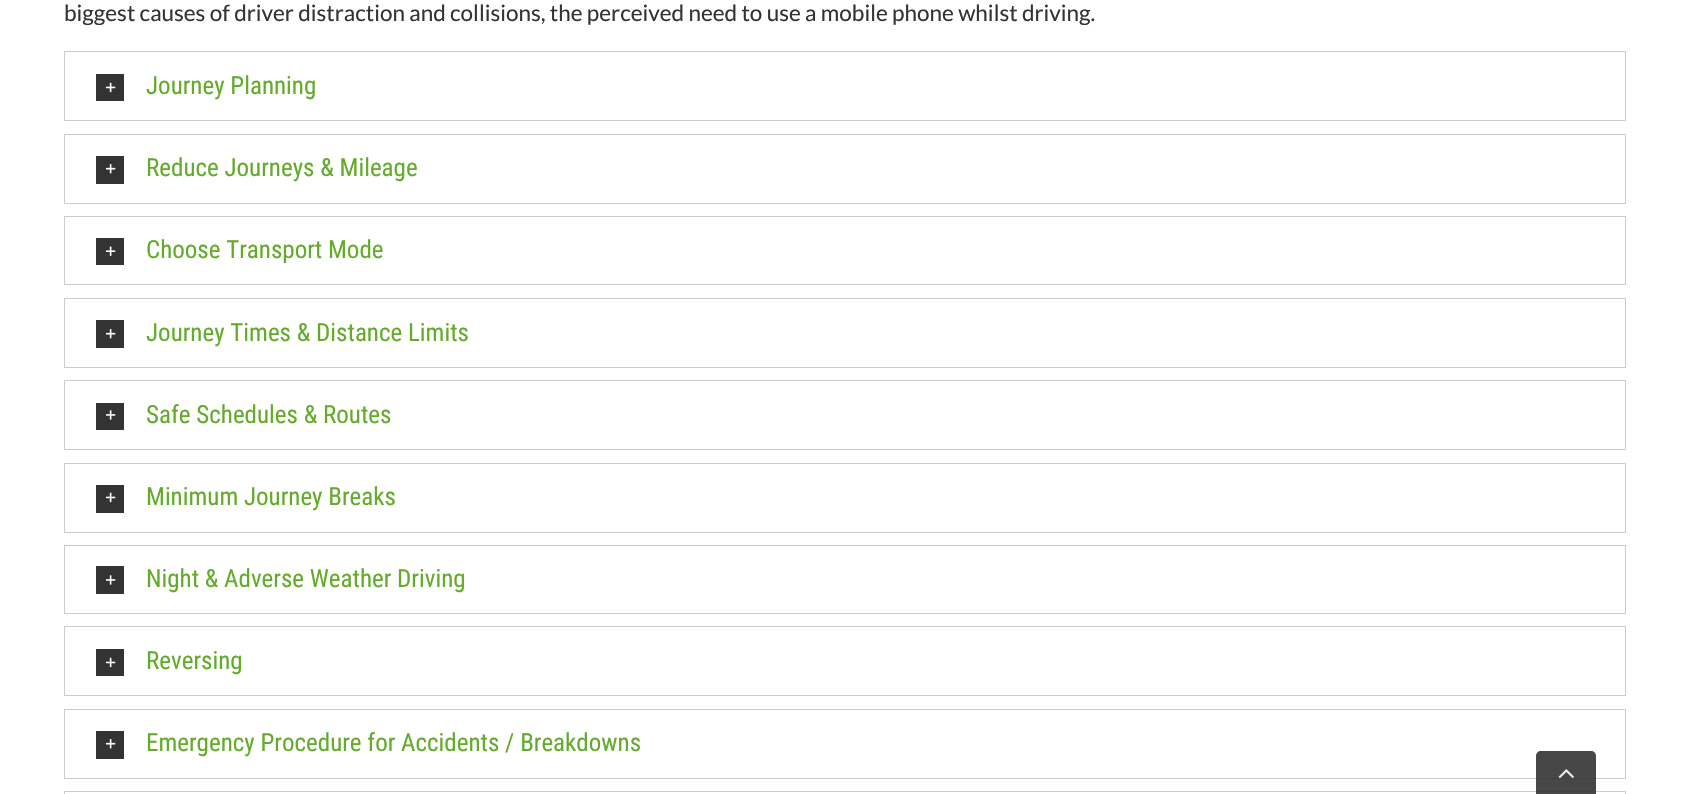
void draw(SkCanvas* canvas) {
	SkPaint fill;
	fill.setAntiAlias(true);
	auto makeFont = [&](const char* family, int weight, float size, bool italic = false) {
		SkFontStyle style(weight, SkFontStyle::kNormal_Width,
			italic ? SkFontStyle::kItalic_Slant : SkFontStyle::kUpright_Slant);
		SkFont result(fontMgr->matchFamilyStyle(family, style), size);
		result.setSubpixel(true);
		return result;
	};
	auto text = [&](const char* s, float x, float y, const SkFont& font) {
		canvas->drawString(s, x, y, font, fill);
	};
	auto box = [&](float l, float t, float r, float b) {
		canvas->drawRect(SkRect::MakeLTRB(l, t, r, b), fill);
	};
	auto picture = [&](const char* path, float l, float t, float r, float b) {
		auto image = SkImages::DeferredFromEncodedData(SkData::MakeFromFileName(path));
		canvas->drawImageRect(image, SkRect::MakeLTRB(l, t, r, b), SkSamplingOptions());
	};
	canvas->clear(0xFFFFFFFF);
	fill.setStyle(SkPaint::kStroke_Style);
	fill.setStrokeWidth(1);
	fill.setColor(0xFFCCCCCC);
	canvas->drawRect(SkRect::MakeLTRB(64.5f, 51.5f, 1625.5f, 120.5f), fill);
	fill.setStyle(SkPaint::kFill_Style);
	fill.setColor(0xFF333333);
	box(96, 74, 124, 101);
	picture("image0.png", 105, 82, 116, 93);
	fill.setStyle(SkPaint::kStroke_Style);
	fill.setColor(0xFFCCCCCC);
	canvas->drawRect(SkRect::MakeLTRB(64.5f, 134.5f, 1625.5f, 203.5f), fill);
	fill.setStyle(SkPaint::kFill_Style);
	fill.setColor(0xFF333333);
	box(96, 156, 124, 184);
	picture("image1.png", 105, 164, 116, 174);
	fill.setStyle(SkPaint::kStroke_Style);
	fill.setColor(0xFFCCCCCC);
	canvas->drawRect(SkRect::MakeLTRB(64.5f, 216.5f, 1625.5f, 284.5f), fill);
	fill.setStyle(SkPaint::kFill_Style);
	fill.setColor(0xFF333333);
	box(96, 238, 124, 265);
	picture("image2.png", 105, 246, 116, 256);
	fill.setStyle(SkPaint::kStroke_Style);
	fill.setColor(0xFFCCCCCC);
	canvas->drawRect(SkRect::MakeLTRB(64.5f, 298.5f, 1625.5f, 367.5f), fill);
	fill.setStyle(SkPaint::kFill_Style);
	fill.setColor(0xFF333333);
	box(96, 320, 124, 348);
	picture("image1.png", 105, 329, 116, 339);
	fill.setStyle(SkPaint::kStroke_Style);
	fill.setColor(0xFFCCCCCC);
	canvas->drawRect(SkRect::MakeLTRB(64.5f, 380.5f, 1625.5f, 449.5f), fill);
	fill.setStyle(SkPaint::kFill_Style);
	fill.setColor(0xFF333333);
	box(96, 403, 124, 430);
	picture("image3.png", 105, 410, 116, 420);
	fill.setStyle(SkPaint::kStroke_Style);
	fill.setColor(0xFFCCCCCC);
	canvas->drawRect(SkRect::MakeLTRB(64.5f, 463.5f, 1625.5f, 532.5f), fill);
	fill.setStyle(SkPaint::kFill_Style);
	fill.setColor(0xFF333333);
	box(96, 485, 124, 513);
	picture("image0.png", 105, 492, 116, 503);
	fill.setStyle(SkPaint::kStroke_Style);
	fill.setColor(0xFFCCCCCC);
	canvas->drawRect(SkRect::MakeLTRB(64.5f, 545.5f, 1625.5f, 613.5f), fill);
	fill.setStyle(SkPaint::kFill_Style);
	fill.setColor(0xFF333333);
	box(96, 566, 124, 594);
	picture("image3.png", 105, 575, 116, 585);
	fill.setStyle(SkPaint::kStroke_Style);
	fill.setColor(0xFFCCCCCC);
	canvas->drawRect(SkRect::MakeLTRB(64.5f, 626.5f, 1625.5f, 695.5f), fill);
	fill.setStyle(SkPaint::kFill_Style);
	fill.setColor(0xFF333333);
	box(96, 649, 124, 676);
	picture("image0.png", 105, 657, 116, 668);
	fill.setStyle(SkPaint::kStroke_Style);
	fill.setColor(0xFFCCCCCC);
	canvas->drawRect(SkRect::MakeLTRB(64.5f, 709.5f, 1625.5f, 778.5f), fill);
	fill.setStyle(SkPaint::kFill_Style);
	fill.setColor(0xFF333333);
	box(96, 731, 124, 759);
	picture("image1.png", 105, 739, 116, 749);
	fill.setStyle(SkPaint::kStroke_Style);
	fill.setColor(0xFFCCCCCC);
	canvas->drawRect(SkRect::MakeLTRB(64.5f, 791.5f, 1625.5f, 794.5f), fill);
	fill.setStyle(SkPaint::kFill_Style);
	fill.setColor(0xE6333333);
	canvas->drawPath(SkPathBuilder().moveTo(1541, 751).lineTo(1591, 751).cubicTo(1594, 751, 1596, 753, 1596, 756).lineTo(1596, 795).lineTo(1536, 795).lineTo(1536, 756).cubicTo(1536, 753, 1538, 751, 1541, 751).close().detach(), fill);
	picture("image4.png", 1558, 769, 1574, 779);
	auto font1 = makeFont("Lato", 400, 22.5f);
	fill.setColor(0xFF333333);
	text("biggest causes of driver distraction and collisions, the perceived need to use a mobile phone whilst driving.", 64, 21, font1);
	auto font2 = makeFont("Roboto Condensed", 400, 25);
	fill.setColor(0xFF64AB2B);
	text("Journey Planning", 146, 94, font2);
	text("Reduce Journeys & Mileage", 146, 176, font2);
	text("Choose Transport Mode", 146, 258, font2);
	text("Journey Times & Distance Limits", 146, 341, font2);
	text("Safe Schedules & Routes", 146, 423, font2);
	text("Minimum Journey Breaks", 146, 505, font2);
	text("Night & Adverse Weather Driving", 146, 587, font2);
	text("Reversing", 146, 669, font2);
	text("Emergency Procedure for Accidents / Breakdowns", 146, 751, font2);
}
